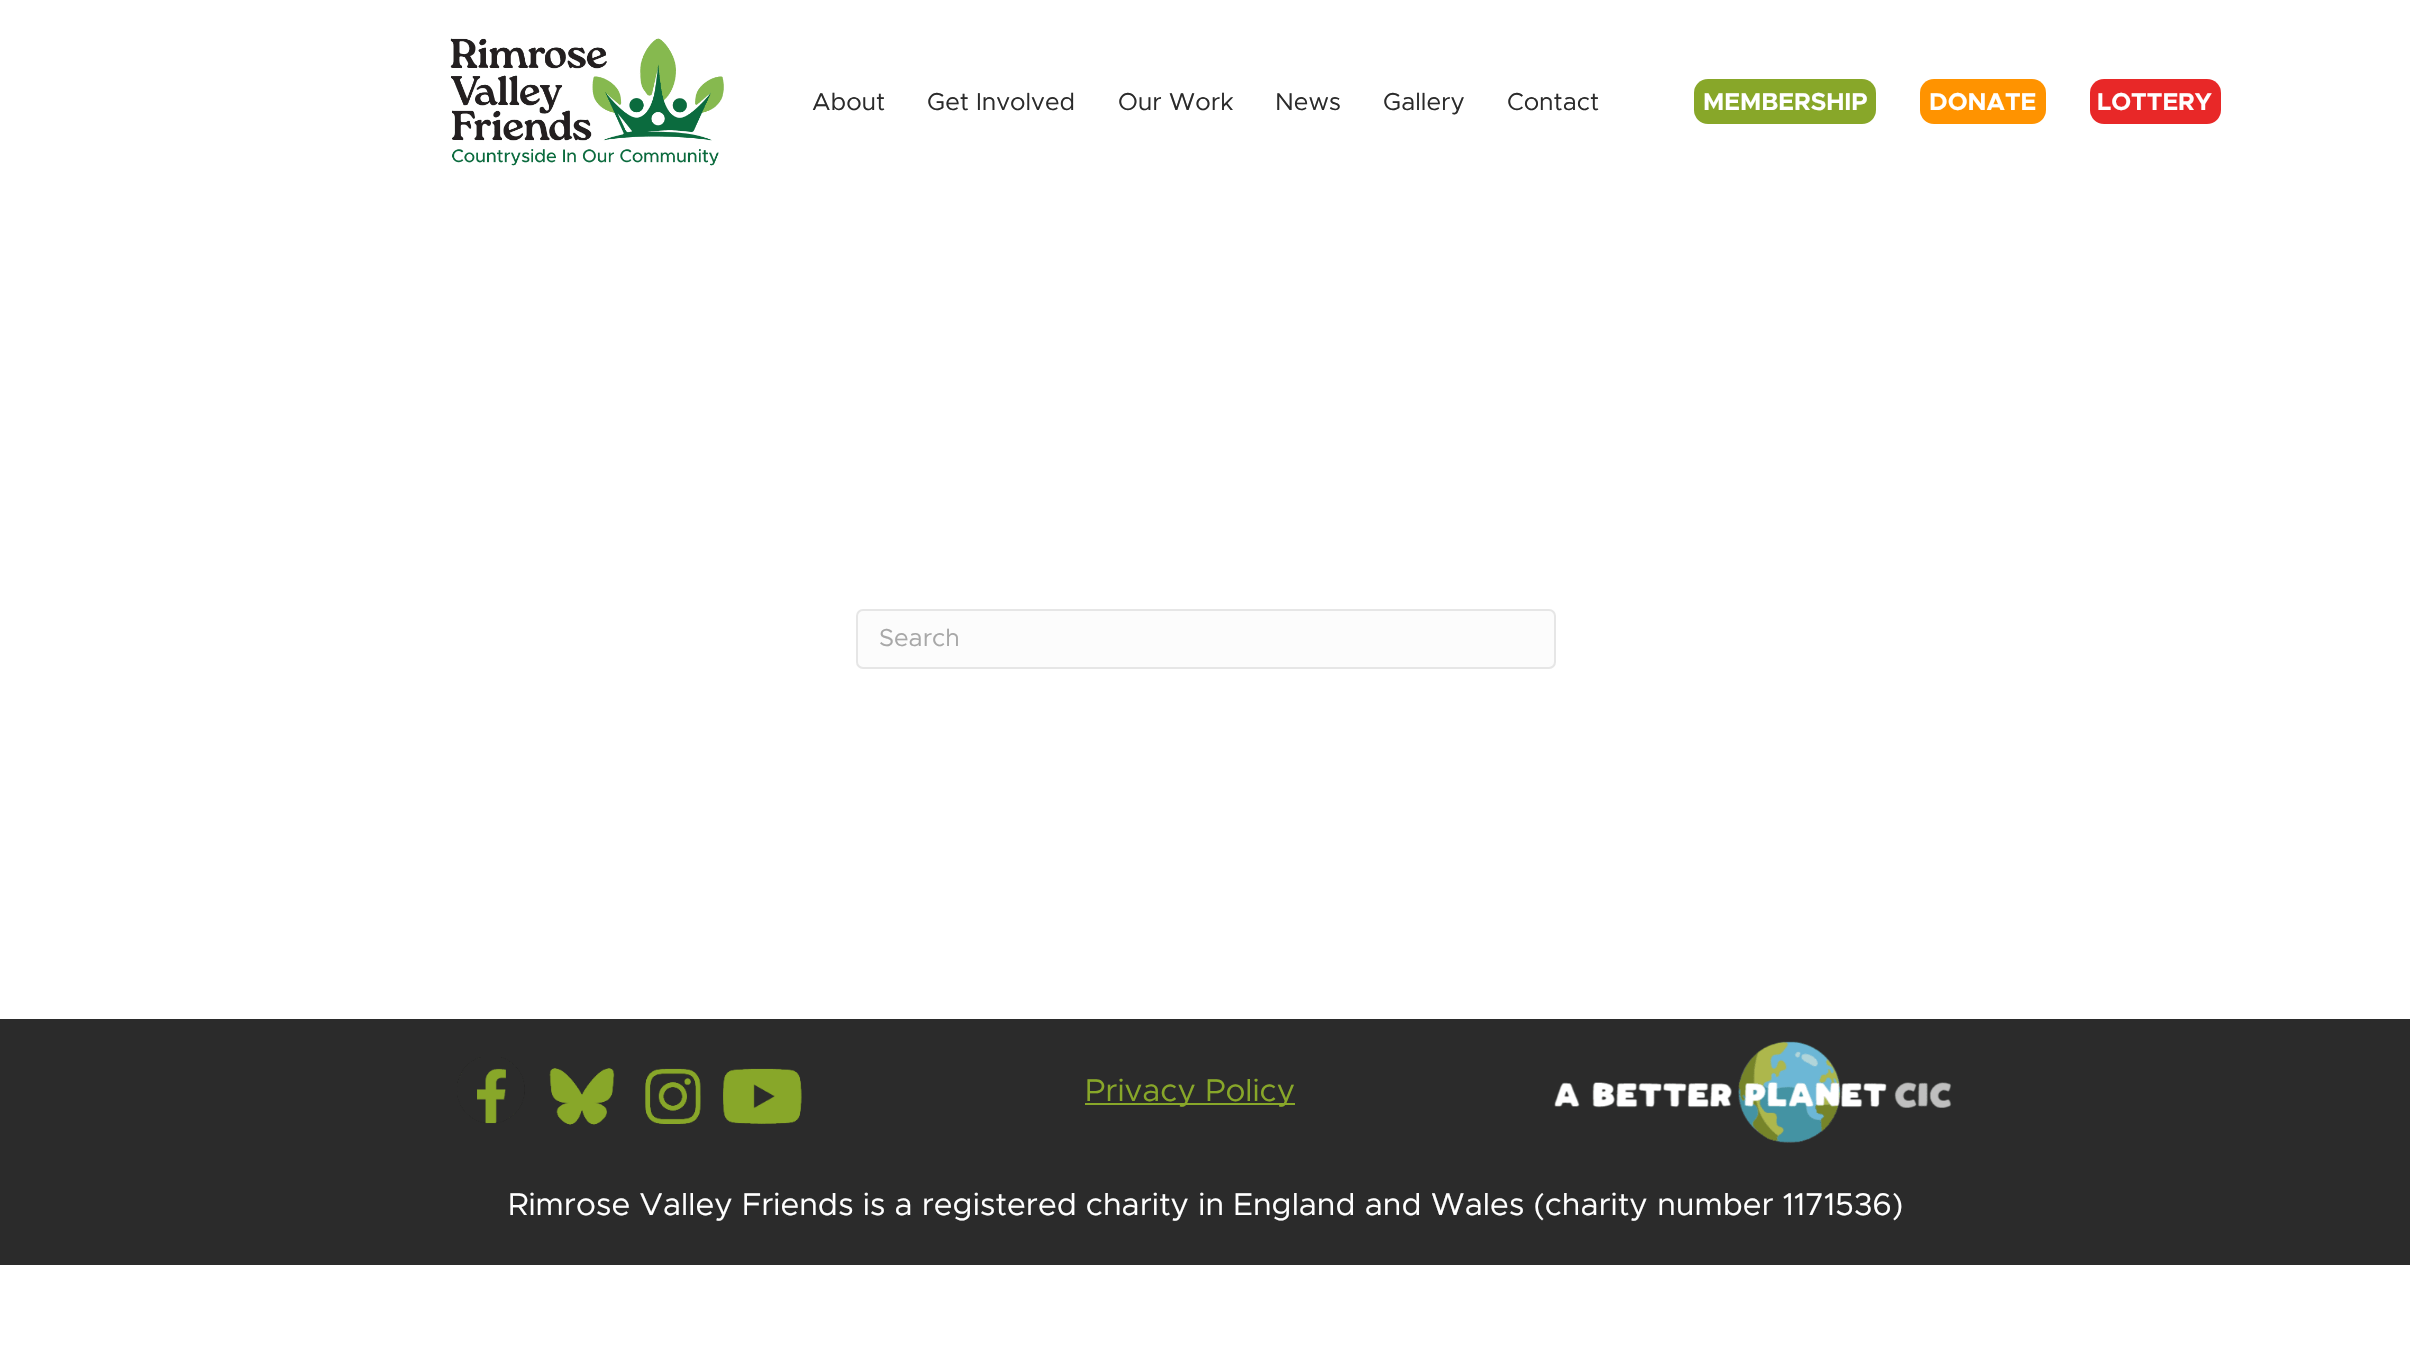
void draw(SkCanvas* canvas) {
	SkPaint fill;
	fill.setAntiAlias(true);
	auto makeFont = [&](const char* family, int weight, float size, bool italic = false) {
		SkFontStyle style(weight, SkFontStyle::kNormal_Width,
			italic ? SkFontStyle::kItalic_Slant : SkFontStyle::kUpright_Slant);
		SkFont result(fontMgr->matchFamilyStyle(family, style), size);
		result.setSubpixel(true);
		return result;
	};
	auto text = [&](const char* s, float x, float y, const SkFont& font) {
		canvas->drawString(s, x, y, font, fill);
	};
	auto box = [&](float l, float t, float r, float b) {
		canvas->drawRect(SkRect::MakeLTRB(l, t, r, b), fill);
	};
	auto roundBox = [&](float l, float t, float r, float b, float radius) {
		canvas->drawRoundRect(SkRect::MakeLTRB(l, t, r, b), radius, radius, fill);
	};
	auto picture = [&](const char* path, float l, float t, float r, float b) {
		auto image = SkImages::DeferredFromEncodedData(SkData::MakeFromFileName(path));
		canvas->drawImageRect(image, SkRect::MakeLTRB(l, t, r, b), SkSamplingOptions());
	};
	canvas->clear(0xFFFFFFFF);
	picture("image0.png", 450, 38, 724, 166);
	fill.setColor(0xFF88A729);
	roundBox(1694, 79, 1876, 124, 14);
	fill.setColor(0xFFFF9300);
	roundBox(1920, 79, 2046, 124, 14);
	fill.setColor(0xFFE82828);
	roundBox(2090, 79, 2221, 124, 14);
	fill.setColor(0xFFFCFCFC);
	canvas->drawRoundRect(SkRect::MakeLTRB(857, 610, 1555, 668), 6, 6, fill);
	fill.setStyle(SkPaint::kStroke_Style);
	fill.setStrokeWidth(2);
	fill.setColor(0xFFE6E6E6);
	canvas->drawRoundRect(SkRect::MakeLTRB(857, 610, 1555, 668), 6, 6, fill);
	fill.setStyle(SkPaint::kFill_Style);
	fill.setColor(0xFF2B2B2B);
	box(0, 1019, 2410, 1265);
	picture("image1.png", 457, 1057, 525, 1124);
	picture("image2.png", 549, 1068, 615, 1125);
	picture("image3.png", 645, 1068, 701, 1124);
	picture("image4.png", 723, 1068, 802, 1124);
	fill.setColor(0xFF88A729);
	box(1085, 1103, 1295, 1105);
	picture("image5.png", 1554, 1041, 1952, 1143);
	auto font1 = makeFont("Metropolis", 400, 24.5f);
	fill.setColor(0xFF2B2B2B);
	text("About", 812, 110, font1);
	text("Get Involved", 927, 110, font1);
	text("Our Work", 1118, 110, font1);
	text("News", 1275, 110, font1);
	text("Gallery", 1383, 110, font1);
	text("Contact", 1507, 110, font1);
	auto font2 = makeFont("Metropolis", 700, 24.5f);
	fill.setColor(0xFFFFFFFF);
	text("MEMBERSHIP", 1703, 110, font2);
	text("DONATE", 1929, 110, font2);
	text("LOTTERY", 2097, 110, font2);
	fill.setColor(0xFFA8A8A8);
	text("Search", 879, 646, font1);
	auto font3 = makeFont("Metropolis", 400, 31.5f);
	fill.setColor(0xFF88A729);
	text("Privacy Policy", 1085, 1101, font3);
	fill.setColor(0xFFFFFFFF);
	text("Rimrose Valley Friends is a registered charity in England and Wales (charity number 1171536)", 508, 1215, font3);
}
